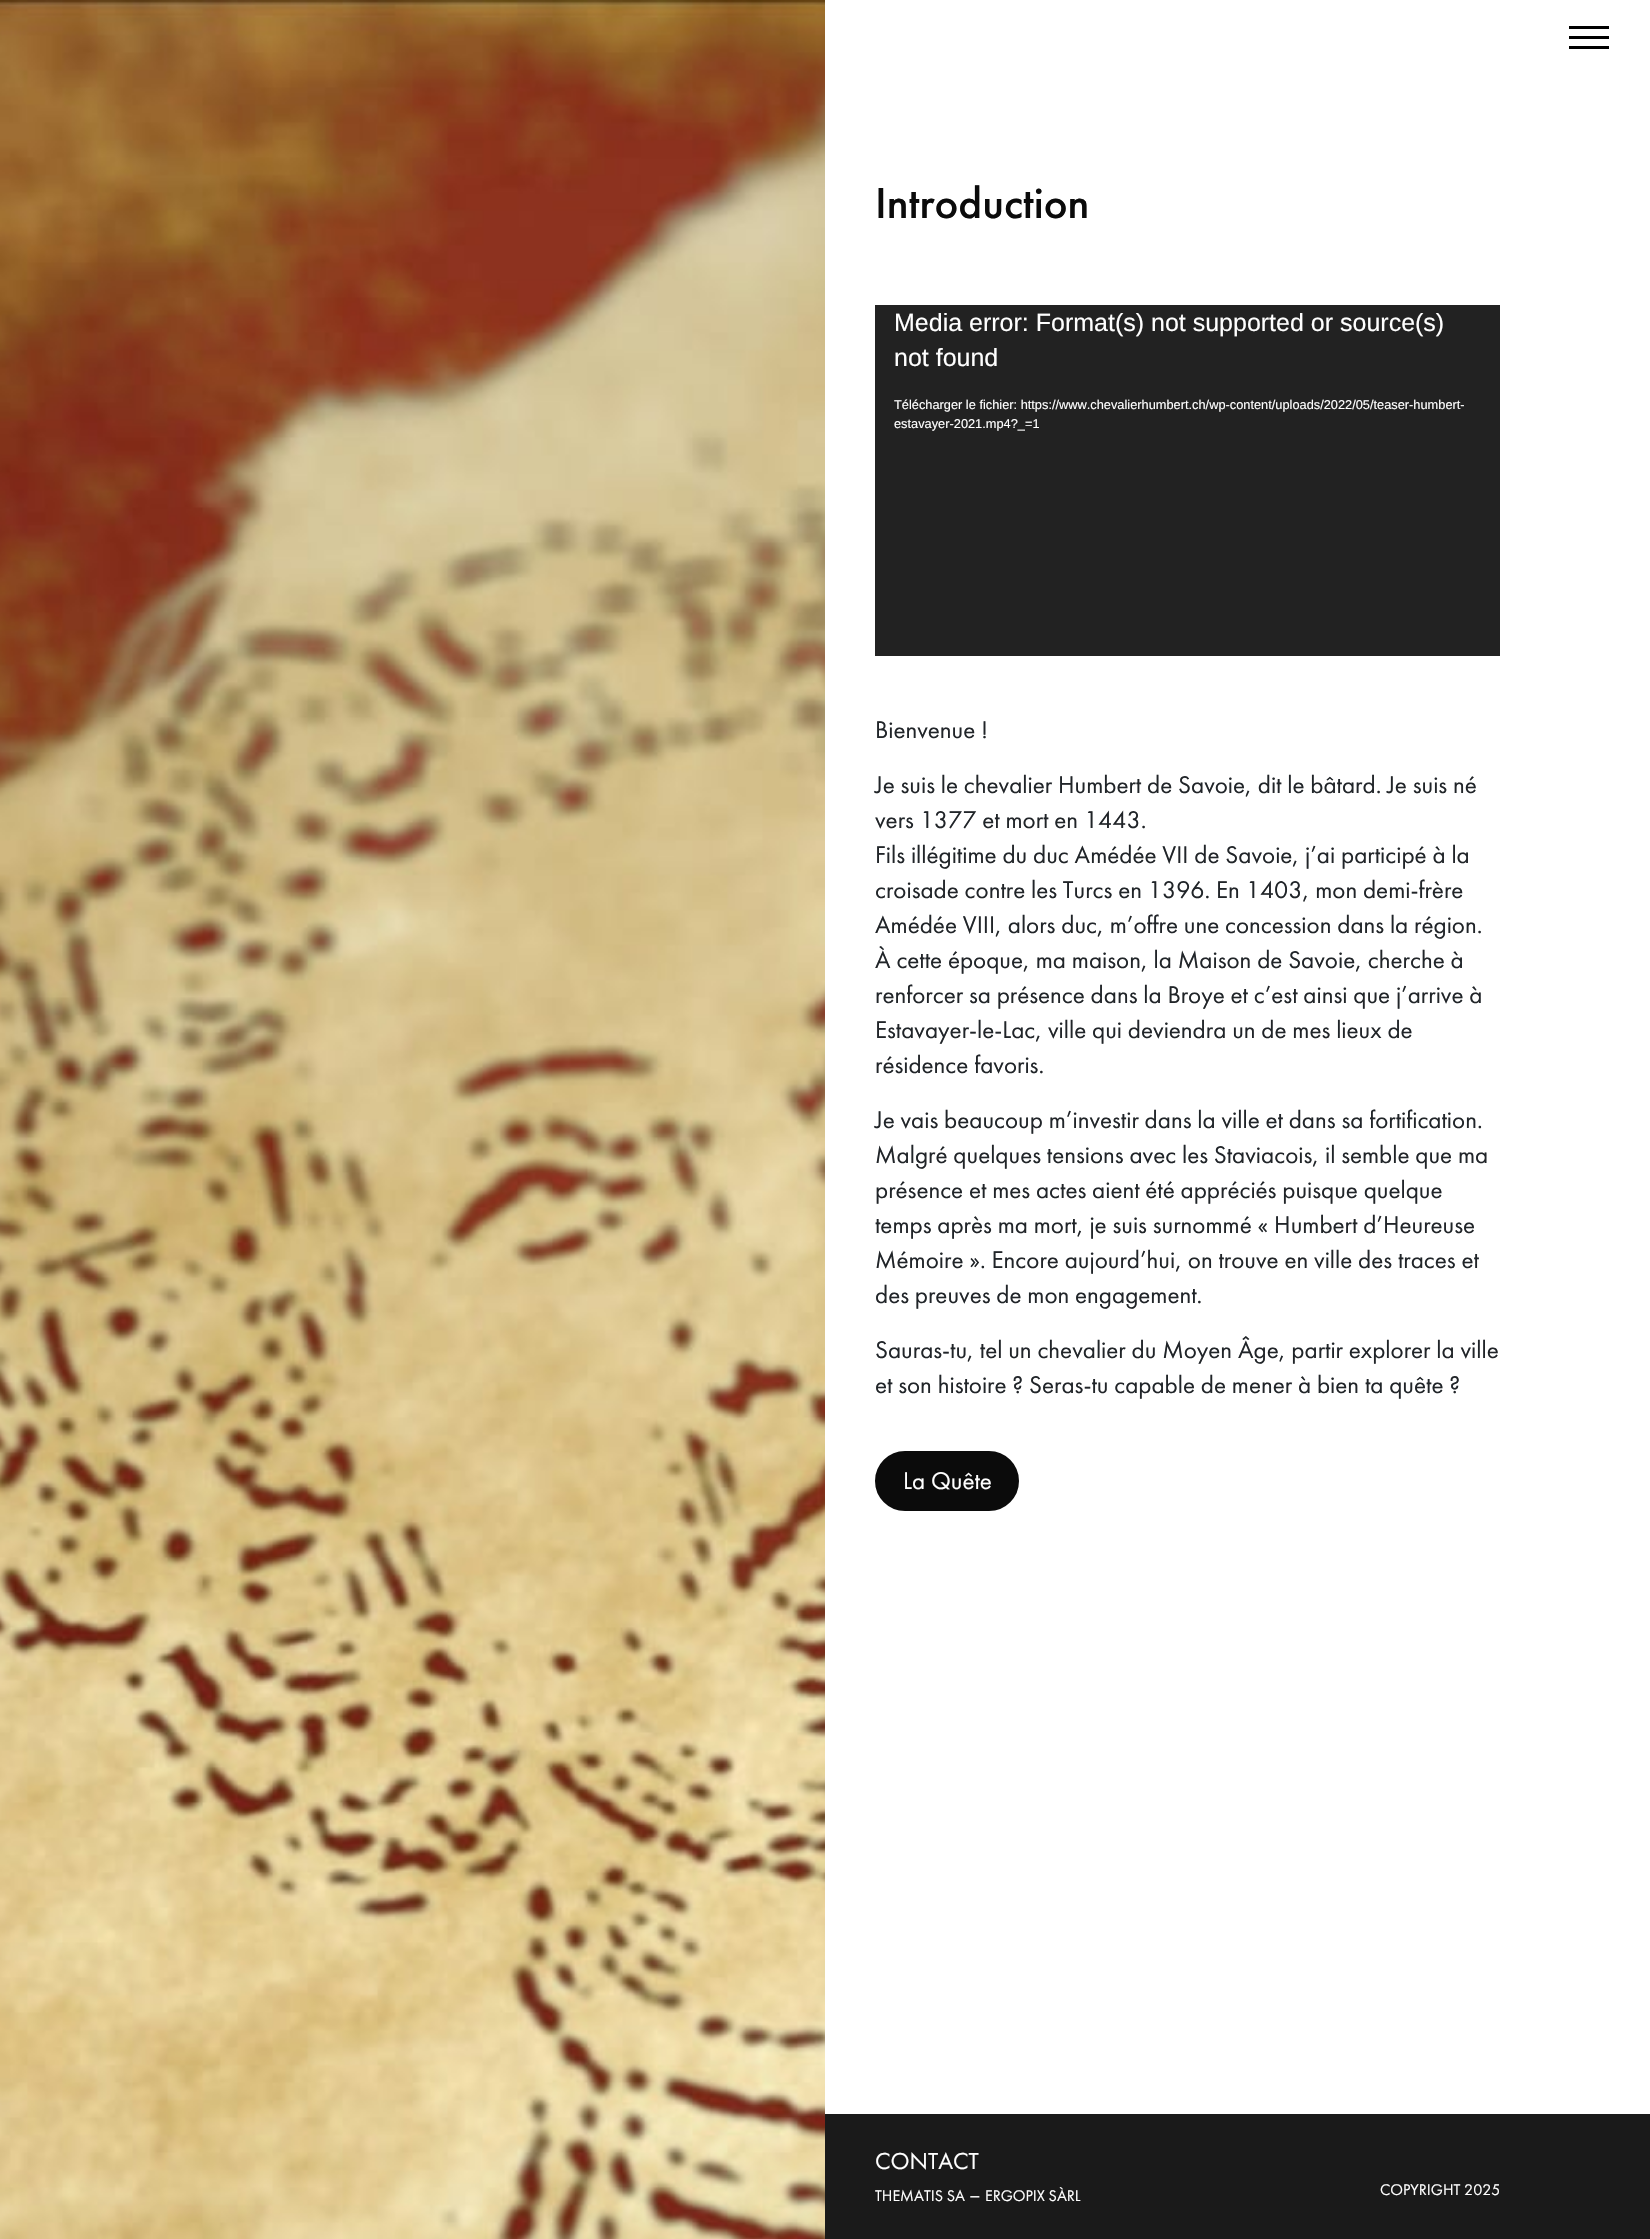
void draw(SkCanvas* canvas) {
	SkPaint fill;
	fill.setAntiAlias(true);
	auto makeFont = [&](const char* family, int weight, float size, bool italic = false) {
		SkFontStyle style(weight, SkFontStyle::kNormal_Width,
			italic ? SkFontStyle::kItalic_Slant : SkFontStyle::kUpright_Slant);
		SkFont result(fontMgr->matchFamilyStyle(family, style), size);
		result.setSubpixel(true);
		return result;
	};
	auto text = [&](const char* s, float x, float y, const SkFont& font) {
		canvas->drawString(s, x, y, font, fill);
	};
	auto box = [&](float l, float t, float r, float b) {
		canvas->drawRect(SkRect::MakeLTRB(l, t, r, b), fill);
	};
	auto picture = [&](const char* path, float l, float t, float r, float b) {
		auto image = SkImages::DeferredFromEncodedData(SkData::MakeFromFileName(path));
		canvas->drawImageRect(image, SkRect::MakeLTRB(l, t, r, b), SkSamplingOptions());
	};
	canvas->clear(0xFFFFFFFF);
	picture("image0.png", 0, 0, 825, 2239);
	fill.setColor(0xFF000000);
	box(1569, 26, 1609, 29);
	box(1569, 36, 1609, 39);
	box(1569, 46, 1609, 49);
	fill.setColor(0xFF222222);
	box(875, 305, 1500, 656);
	fill.setColor(0xFF0B0B0B);
	canvas->drawRoundRect(SkRect::MakeLTRB(876.5f, 1452.5f, 1017.5f, 1509.5f), 28.5f, 28.5f, fill);
	fill.setStyle(SkPaint::kStroke_Style);
	fill.setStrokeWidth(3);
	canvas->drawRoundRect(SkRect::MakeLTRB(876.5f, 1452.5f, 1017.5f, 1509.5f), 28.5f, 28.5f, fill);
	fill.setStyle(SkPaint::kFill_Style);
	fill.setColor(0xFF1A1A1A);
	box(825, 2114, 1650, 2239);
	auto font1 = makeFont("Futura PT", 500, 45);
	fill.setColor(0xFF0B0B0B);
	text("Introduction", 875, 218, font1);
	auto font2 = makeFont("Liberation Sans", 400, 25);
	fill.setColor(0xFFFFFFFF);
	text("Media error: Format(s) not supported or source(s)", 894, 331, font2);
	text("not found", 894, 366, font2);
	auto font3 = makeFont("Liberation Sans", 400, 12.8f);
	text("Télécharger le fichier: https://www.chevalierhumbert.ch/wp-content/uploads/2022/05/teaser-humbert-", 894, 409, font3);
	text("estavayer-2021.mp4?_=1", 894, 428, font3);
	auto font4 = makeFont("Futura PT", 400, 25);
	fill.setColor(0xFF212529);
	text("Bienvenue !", 875, 738, font4);
	text("Je suis le chevalier Humbert de Savoie, dit le bâtard. Je suis né", 875, 793, font4);
	text("vers 1377 et mort en 1443.", 875, 828, font4);
	text("Fils illégitime du duc Amédée VII de Savoie, j’ai participé à la", 875, 863, font4);
	text("croisade contre les Turcs en 1396. En 1403, mon demi-frère", 875, 898, font4);
	text("Amédée VIII, alors duc, m’offre une concession dans la région.", 875, 933, font4);
	text("À cette époque, ma maison, la Maison de Savoie, cherche à", 875, 968, font4);
	text("renforcer sa présence dans la Broye et c’est ainsi que j’arrive à", 875, 1003, font4);
	text("Estavayer-le-Lac, ville qui deviendra un de mes lieux de", 875, 1038, font4);
	text("résidence favoris.", 875, 1073, font4);
	text("Je vais beaucoup m’investir dans la ville et dans sa fortification.", 875, 1128, font4);
	text("Malgré quelques tensions avec les Staviacois, il semble que ma", 875, 1163, font4);
	text("présence et mes actes aient été appréciés puisque quelque", 875, 1198, font4);
	text("temps après ma mort, je suis surnommé « Humbert d’Heureuse", 875, 1233, font4);
	text("Mémoire ». Encore aujourd’hui, on trouve en ville des traces et", 875, 1268, font4);
	text("des preuves de mon engagement.", 875, 1303, font4);
	text("Sauras-tu, tel un chevalier du Moyen Âge, partir explorer la ville", 875, 1358, font4);
	text("et son histoire ? Seras-tu capable de mener à bien ta quête ?", 875, 1393, font4);
	fill.setColor(0xFFFFFFFF);
	text("La Quête", 903, 1489, font4);
	auto font5 = makeFont("Futura PT", 400, 24);
	text("CONTACT", 875, 2169, font5);
	auto font6 = makeFont("Futura PT", 400, 16);
	text("THEMATIS SA", 875, 2201, font6);
	auto font7 = makeFont("Futura PT", 400, 20);
	text("–", 969, 2201, font7);
	text("ERGOPIX SÀRL", 985, 2201, font6);
	text("COPYRIGHT 2025", 1380, 2195, font6);
}
